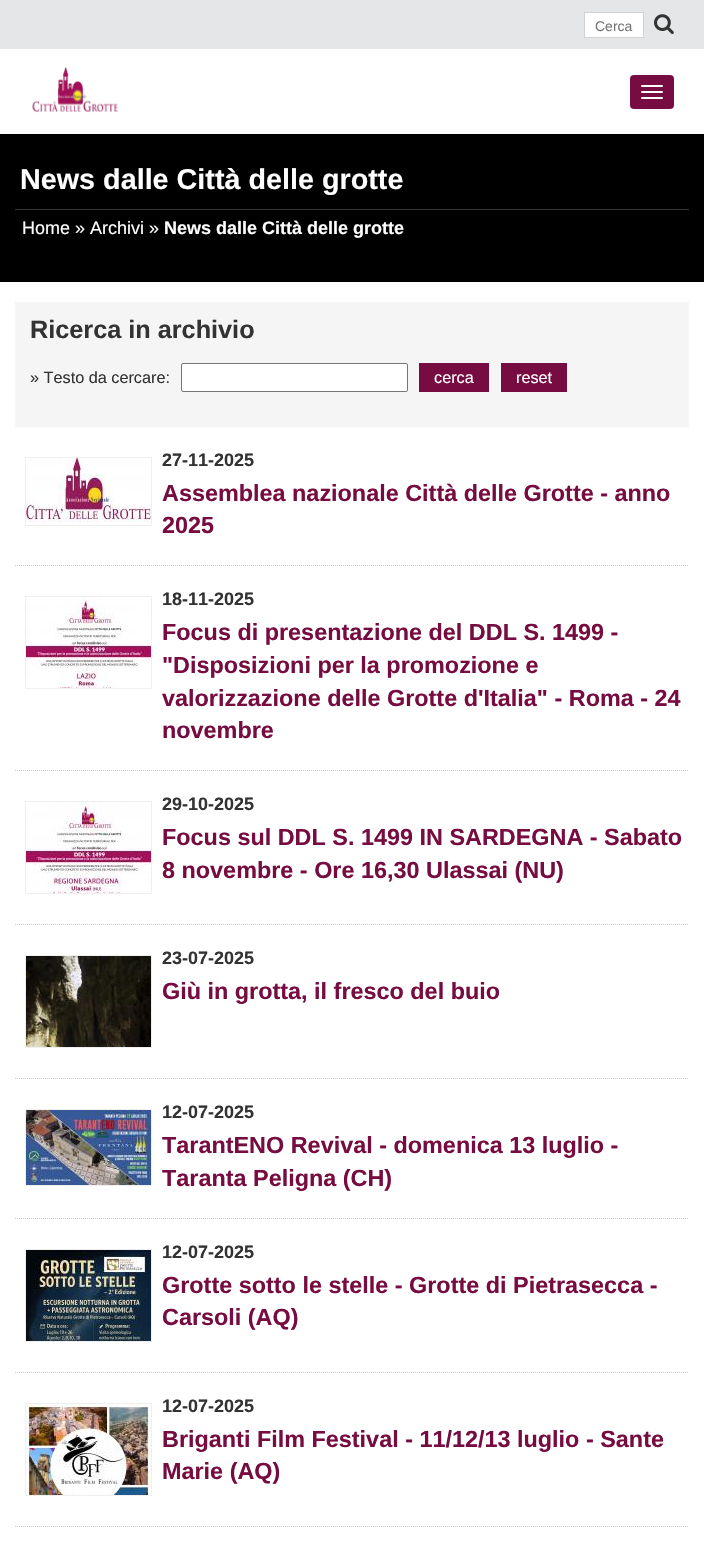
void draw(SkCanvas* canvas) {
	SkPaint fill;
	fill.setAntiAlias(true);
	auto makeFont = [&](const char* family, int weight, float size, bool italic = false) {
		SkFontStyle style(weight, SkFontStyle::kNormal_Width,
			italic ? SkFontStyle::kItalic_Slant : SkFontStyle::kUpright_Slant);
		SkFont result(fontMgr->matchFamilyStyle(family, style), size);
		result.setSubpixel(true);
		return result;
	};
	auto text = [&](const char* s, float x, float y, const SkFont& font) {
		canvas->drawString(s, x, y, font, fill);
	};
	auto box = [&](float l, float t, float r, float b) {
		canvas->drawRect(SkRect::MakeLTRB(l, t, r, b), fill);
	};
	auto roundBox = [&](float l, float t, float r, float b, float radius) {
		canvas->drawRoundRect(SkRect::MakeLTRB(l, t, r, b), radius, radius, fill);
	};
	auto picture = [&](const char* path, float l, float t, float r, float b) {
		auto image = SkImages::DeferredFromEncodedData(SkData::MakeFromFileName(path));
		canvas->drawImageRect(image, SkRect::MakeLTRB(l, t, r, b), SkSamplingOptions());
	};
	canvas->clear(0xFFFFFFFF);
	fill.setColor(0xFFE4E6E7);
	box(0, 0, 704, 49);
	fill.setColor(0xFFFFFFFF);
	canvas->drawRect(SkRect::MakeLTRB(584.5f, 12.5f, 643.5f, 37.5f), fill);
	fill.setStyle(SkPaint::kStroke_Style);
	fill.setStrokeWidth(1);
	fill.setColor(0xFFD2D2D2);
	canvas->drawRect(SkRect::MakeLTRB(584.5f, 12.5f, 643.5f, 37.5f), fill);
	picture("image0.png", 654, 14, 674, 34);
	picture("image1.png", 31, 66, 119, 113);
	fill.setStyle(SkPaint::kFill_Style);
	fill.setColor(0xFF760C41);
	roundBox(630, 75, 674, 109, 4);
	fill.setColor(0xFFFFFFFF);
	roundBox(641, 85, 663, 87, 1);
	roundBox(641, 91, 663, 93, 1);
	roundBox(641, 97, 663, 99, 1);
	fill.setColor(0xFF000000);
	box(0, 134, 704, 282);
	fill.setColor(0xFF363636);
	box(15, 209, 689, 210);
	fill.setColor(0xFFF5F5F5);
	box(15, 302, 689, 427);
	fill.setColor(0xFFFFFFFF);
	canvas->drawRoundRect(SkRect::MakeLTRB(181.5f, 363.5f, 407.5f, 391.5f), 1.5f, 1.5f, fill);
	fill.setStyle(SkPaint::kStroke_Style);
	fill.setColor(0xFF767676);
	canvas->drawRoundRect(SkRect::MakeLTRB(181.5f, 363.5f, 407.5f, 391.5f), 1.5f, 1.5f, fill);
	fill.setStyle(SkPaint::kFill_Style);
	fill.setColor(0xFF760C41);
	box(419, 363, 489, 392);
	box(501, 363, 567, 392);
	fill.setStyle(SkPaint::kStroke_Style);
	fill.setColor(0xFFCCCCCC);
	fill.setPathEffect(SkDashPathEffect::Make({{1, 1}}, 0));
	canvas->drawPath(SkPathBuilder().moveTo(15, 565.5f).lineTo(689, 565.5f).detach(), fill);
	fill.setPathEffect(nullptr);
	fill.setColor(0xFFEFEFEF);
	canvas->drawRect(SkRect::MakeLTRB(25.5f, 457.5f, 151.5f, 525.5f), fill);
	picture("image2.png", 26, 458, 151, 522);
	fill.setColor(0xFFCCCCCC);
	fill.setPathEffect(SkDashPathEffect::Make({{1, 1}}, 0));
	canvas->drawPath(SkPathBuilder().moveTo(15, 770.5f).lineTo(689, 770.5f).detach(), fill);
	fill.setPathEffect(nullptr);
	fill.setColor(0xFFEFEFEF);
	canvas->drawRect(SkRect::MakeLTRB(25.5f, 596.5f, 151.5f, 688.5f), fill);
	picture("image3.png", 26, 597, 151, 688);
	fill.setColor(0xFFCCCCCC);
	fill.setPathEffect(SkDashPathEffect::Make({{1, 1}}, 0));
	canvas->drawPath(SkPathBuilder().moveTo(15, 924.5f).lineTo(689, 924.5f).detach(), fill);
	fill.setPathEffect(nullptr);
	fill.setColor(0xFFEFEFEF);
	canvas->drawRect(SkRect::MakeLTRB(25.5f, 801.5f, 151.5f, 893.5f), fill);
	picture("image4.png", 26, 802, 151, 893);
	fill.setColor(0xFFCCCCCC);
	fill.setPathEffect(SkDashPathEffect::Make({{1, 1}}, 0));
	canvas->drawPath(SkPathBuilder().moveTo(15, 1078.5f).lineTo(689, 1078.5f).detach(), fill);
	fill.setPathEffect(nullptr);
	fill.setColor(0xFFEFEFEF);
	canvas->drawRect(SkRect::MakeLTRB(25.5f, 955.5f, 151.5f, 1047.5f), fill);
	picture("image5.png", 26, 956, 151, 1047);
	fill.setColor(0xFFCCCCCC);
	fill.setPathEffect(SkDashPathEffect::Make({{1, 1}}, 0));
	canvas->drawPath(SkPathBuilder().moveTo(15, 1218.5f).lineTo(689, 1218.5f).detach(), fill);
	fill.setPathEffect(nullptr);
	fill.setColor(0xFFEFEFEF);
	canvas->drawRect(SkRect::MakeLTRB(25.5f, 1109.5f, 151.5f, 1185.5f), fill);
	picture("image6.png", 26, 1110, 151, 1185);
	fill.setColor(0xFFCCCCCC);
	fill.setPathEffect(SkDashPathEffect::Make({{1, 1}}, 0));
	canvas->drawPath(SkPathBuilder().moveTo(15, 1372.5f).lineTo(689, 1372.5f).detach(), fill);
	fill.setPathEffect(nullptr);
	fill.setColor(0xFFEFEFEF);
	canvas->drawRect(SkRect::MakeLTRB(25.5f, 1249.5f, 151.5f, 1341.5f), fill);
	picture("image7.png", 26, 1250, 151, 1341);
	fill.setColor(0xFFCCCCCC);
	fill.setPathEffect(SkDashPathEffect::Make({{1, 1}}, 0));
	canvas->drawPath(SkPathBuilder().moveTo(15, 1526.5f).lineTo(689, 1526.5f).detach(), fill);
	fill.setPathEffect(nullptr);
	fill.setColor(0xFFEFEFEF);
	canvas->drawRect(SkRect::MakeLTRB(25.5f, 1403.5f, 151.5f, 1495.5f), fill);
	picture("image8.png", 26, 1404, 151, 1495);
	auto font1 = makeFont("Liberation Sans", 400, 14);
	fill.setStyle(SkPaint::kFill_Style);
	fill.setColor(0xFF757575);
	text("Cerca", 595, 31, font1);
	auto font2 = makeFont("Liberation Sans", 700, 28.75f);
	fill.setColor(0xFFFFFFFF);
	text("News dalle Città delle grotte", 20, 189, font2);
	auto font3 = makeFont("Liberation Sans", 400, 18);
	text("Home » Archivi »", 22, 234, font3);
	auto font4 = makeFont("Liberation Sans", 700, 18);
	text("News dalle Città delle grotte", 164, 234, font4);
	auto font5 = makeFont("Liberation Sans", 700, 25.25f);
	fill.setColor(0xFF333333);
	text("Ricerca in archivio", 30, 338, font5);
	auto font6 = makeFont("Liberation Sans", 400, 16.25f);
	text("» Testo da cercare:", 30, 383, font6);
	fill.setColor(0xFFFFFFFF);
	text("cerca", 434, 383, font6);
	text("reset", 516, 383, font6);
	fill.setColor(0xFF333333);
	text("27-11-2025", 162, 466, font4);
	auto font7 = makeFont("Liberation Sans", 700, 23.4f);
	fill.setColor(0xFF760C3F);
	text("Assemblea nazionale Città delle Grotte - anno", 162, 501, font7);
	text("2025", 162, 533, font7);
	fill.setColor(0xFF333333);
	text("18-11-2025", 162, 605, font4);
	fill.setColor(0xFF760C3F);
	text("Focus di presentazione del DDL S. 1499 -", 162, 640, font7);
	text("\"Disposizioni per la promozione e", 162, 673, font7);
	text("valorizzazione delle Grotte d'Italia\" - Roma - 24", 162, 706, font7);
	text("novembre", 162, 738, font7);
	fill.setColor(0xFF333333);
	text("29-10-2025", 162, 810, font4);
	fill.setColor(0xFF760C3F);
	text("Focus sul DDL S. 1499 IN SARDEGNA - Sabato", 162, 845, font7);
	text("8 novembre - Ore 16,30 Ulassai (NU)", 162, 878, font7);
	fill.setColor(0xFF333333);
	text("23-07-2025", 162, 964, font4);
	fill.setColor(0xFF760C3F);
	text("Giù in grotta, il fresco del buio", 162, 999, font7);
	fill.setColor(0xFF333333);
	text("12-07-2025", 162, 1118, font4);
	fill.setColor(0xFF760C3F);
	text("TarantENO Revival - domenica 13 luglio -", 162, 1153, font7);
	text("Taranta Peligna (CH)", 162, 1186, font7);
	fill.setColor(0xFF333333);
	text("12-07-2025", 162, 1258, font4);
	fill.setColor(0xFF760C3F);
	text("Grotte sotto le stelle - Grotte di Pietrasecca -", 162, 1293, font7);
	text("Carsoli (AQ)", 162, 1325, font7);
	fill.setColor(0xFF333333);
	text("12-07-2025", 162, 1412, font4);
	fill.setColor(0xFF760C3F);
	text("Briganti Film Festival - 11/12/13 luglio - Sante", 162, 1447, font7);
	text("Marie (AQ)", 162, 1479, font7);
}
